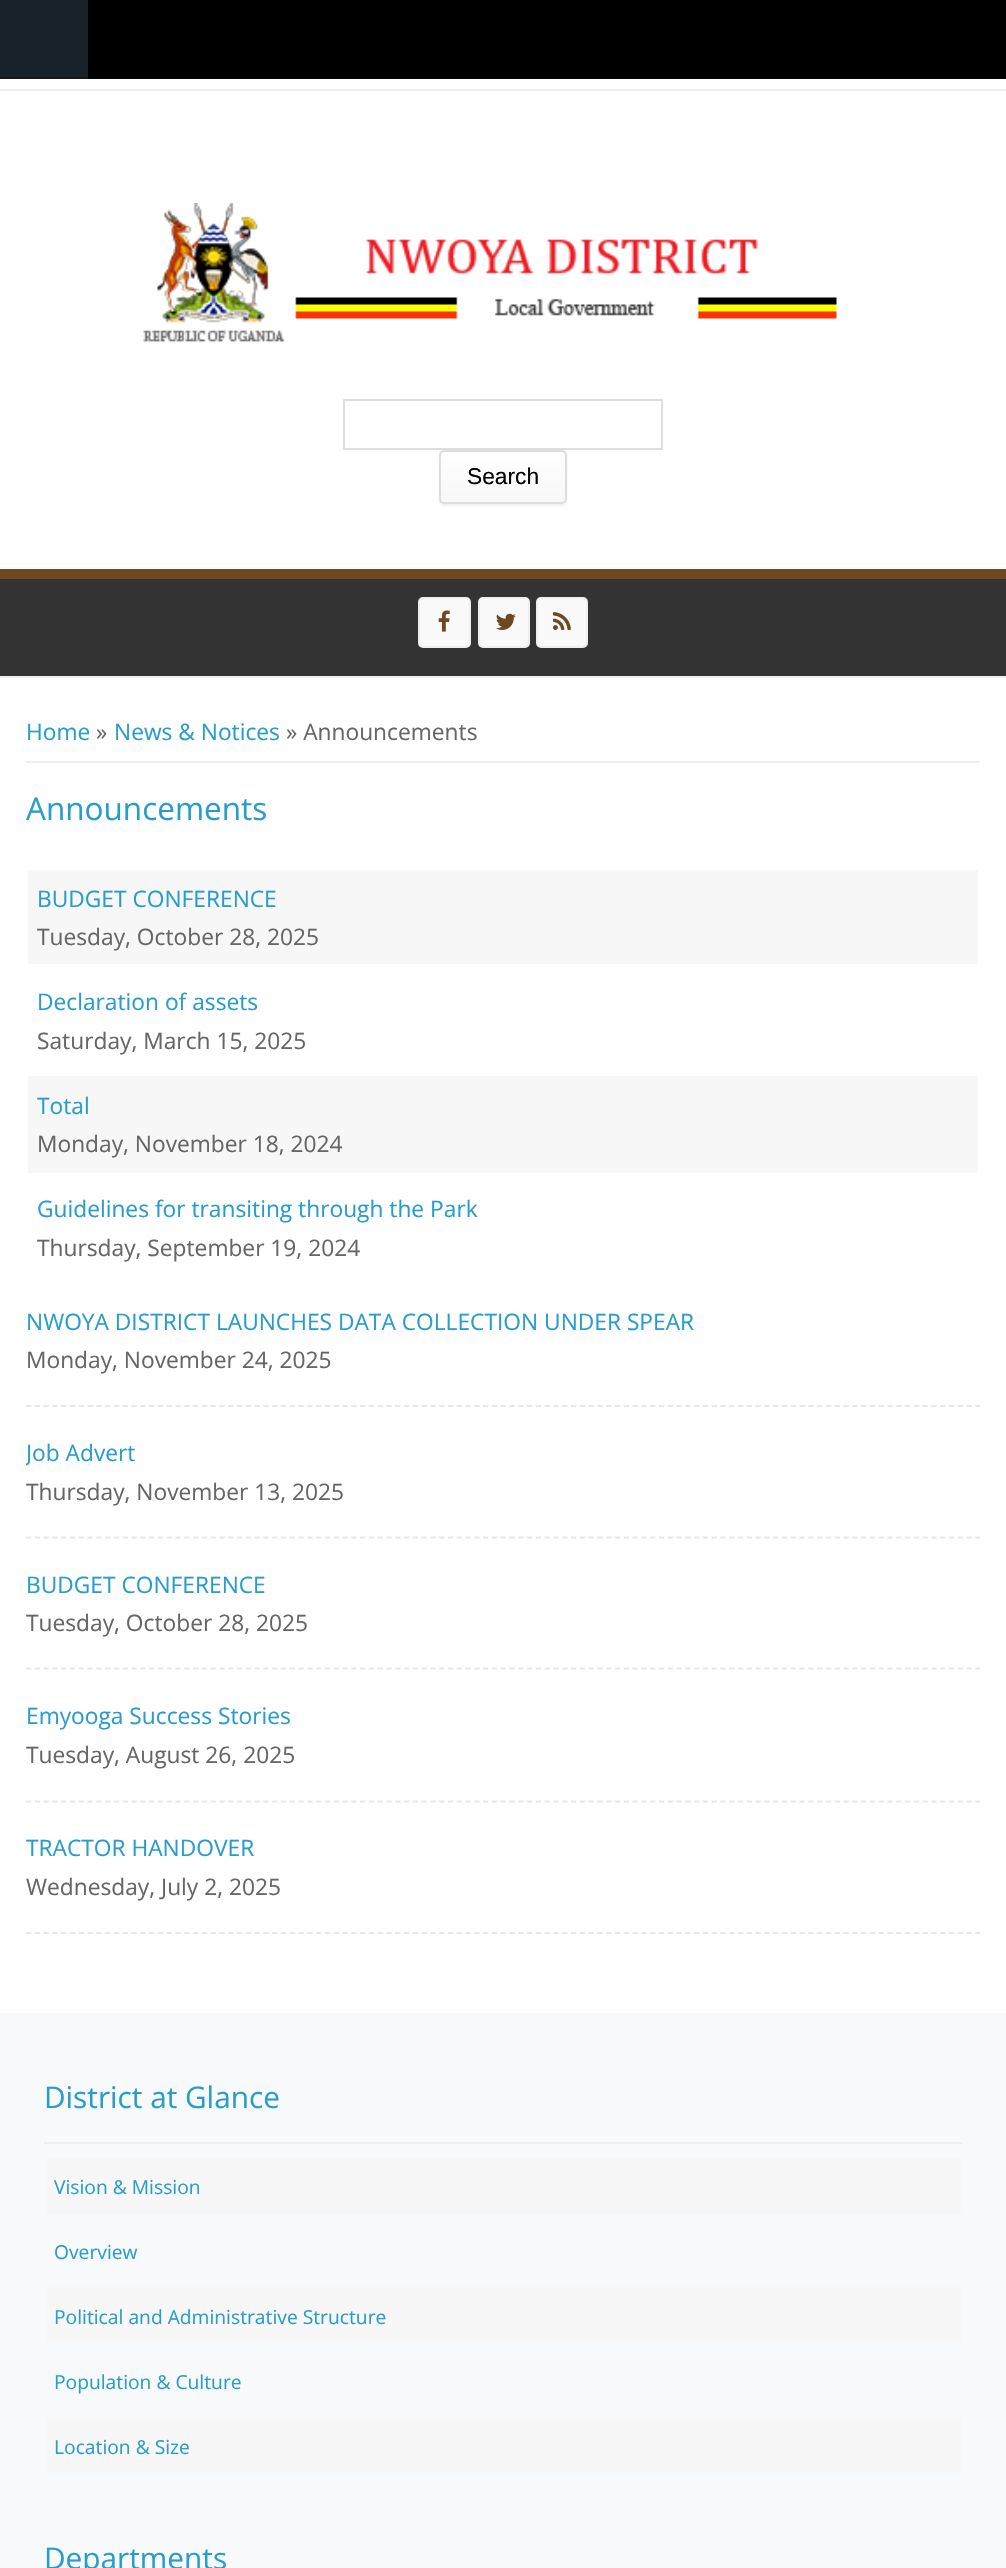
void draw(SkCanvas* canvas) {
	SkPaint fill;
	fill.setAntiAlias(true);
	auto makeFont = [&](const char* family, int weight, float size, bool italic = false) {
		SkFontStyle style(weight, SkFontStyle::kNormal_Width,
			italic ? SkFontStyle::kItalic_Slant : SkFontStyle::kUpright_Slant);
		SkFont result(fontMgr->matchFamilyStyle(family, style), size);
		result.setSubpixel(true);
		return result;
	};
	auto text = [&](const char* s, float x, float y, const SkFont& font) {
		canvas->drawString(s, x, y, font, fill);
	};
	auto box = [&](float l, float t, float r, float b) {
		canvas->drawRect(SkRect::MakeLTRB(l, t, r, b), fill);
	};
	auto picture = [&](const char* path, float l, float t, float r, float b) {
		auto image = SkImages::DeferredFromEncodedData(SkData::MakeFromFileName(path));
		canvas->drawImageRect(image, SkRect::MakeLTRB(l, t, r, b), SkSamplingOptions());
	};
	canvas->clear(0xFFFFFFFF);
	fill.setColor(0xFFEEEEEE);
	box(0, 89, 1006, 91);
	fill.setColor(0xFF333333);
	box(0, 579, 1006, 676);
	fill.setColor(0xFF6E4821);
	box(0, 569, 1006, 579);
	fill.setColor(0xFFEEEEEE);
	box(0, 676, 1006, 678);
	fill.setColor(0xFF000000);
	box(88, 0, 1006, 79);
	fill.setColor(0xFF18222B);
	box(0, 0, 88, 77);
	fill.setColor(0xFF181818);
	box(0, 77, 88, 79);
	fill.setColor(0xFFF9F9F9);
	canvas->drawRoundRect(SkRect::MakeLTRB(419, 598, 470, 647), 4, 4, fill);
	fill.setStyle(SkPaint::kStroke_Style);
	fill.setStrokeWidth(2);
	fill.setColor(0xFFEEEEEE);
	canvas->drawRoundRect(SkRect::MakeLTRB(419, 598, 470, 647), 4, 4, fill);
	picture("image0.png", 438, 610, 450, 632);
	fill.setStyle(SkPaint::kFill_Style);
	fill.setColor(0xFFF9F9F9);
	canvas->drawRoundRect(SkRect::MakeLTRB(479, 598, 529, 647), 4, 4, fill);
	fill.setStyle(SkPaint::kStroke_Style);
	fill.setColor(0xFFEEEEEE);
	canvas->drawRoundRect(SkRect::MakeLTRB(479, 598, 529, 647), 4, 4, fill);
	picture("image1.png", 496, 613, 516, 630);
	fill.setStyle(SkPaint::kFill_Style);
	fill.setColor(0xFFF9F9F9);
	canvas->drawRoundRect(SkRect::MakeLTRB(537, 598, 587, 647), 4, 4, fill);
	fill.setStyle(SkPaint::kStroke_Style);
	fill.setColor(0xFFEEEEEE);
	canvas->drawRoundRect(SkRect::MakeLTRB(537, 598, 587, 647), 4, 4, fill);
	picture("image2.png", 553, 612, 571, 630);
	picture("image3.png", 143, 203, 837, 342);
	fill.setColor(0xFFDDDDDD);
	canvas->drawRect(SkRect::MakeLTRB(344, 400, 662, 449), fill);
	fill.setStyle(SkPaint::kFill_Style);
	fill.setColor(0x33B4B4B4);
	fill.setMaskFilter(SkMaskFilter::MakeBlur(kNormal_SkBlurStyle, 1));
	canvas->drawRoundRect(SkRect::MakeLTRB(439, 452, 567, 506), 5, 5, fill);
	fill.setMaskFilter(nullptr);
	canvas->save();
	canvas->clipPath(SkPathBuilder().moveTo(444, 450).lineTo(562, 450).cubicTo(565, 450, 567, 452, 567, 455).lineTo(567, 499).cubicTo(567, 502, 565, 504, 562, 504).lineTo(444, 504).cubicTo(441, 504, 439, 502, 439, 499).lineTo(439, 455).cubicTo(439, 452, 441, 450, 444, 450).close().detach(), true);
	{
		const SkColor colors[] = {0xFFF7F7F7, 0xFFFFFFFF};
		const float stops[] = {0, 1};
		const SkPoint ends[] = {{503, 502}, {503, 452}};
		fill.setShader(SkGradientShader::MakeLinear(ends, colors, stops, 2, SkTileMode::kClamp));
		fill.setAlpha(255);
	}
	box(439, 452, 567, 502);
	canvas->restore();
	fill.setStyle(SkPaint::kStroke_Style);
	fill.setShader(nullptr);
	fill.setColor(0xFFDDDDDD);
	canvas->drawRoundRect(SkRect::MakeLTRB(440, 451, 566, 503), 4, 4, fill);
	fill.setStyle(SkPaint::kFill_Style);
	fill.setColor(0xFFEEEEEE);
	box(26, 761, 980, 763);
	fill.setColor(0xFFF7F7F7);
	box(28, 870, 978, 964);
	box(28, 1076, 978, 1173);
	fill.setStyle(SkPaint::kStroke_Style);
	fill.setStrokeWidth(1.8f);
	fill.setColor(0xFFE7E7E7);
	fill.setPathEffect(SkDashPathEffect::Make({{5.25f, 3.54f}}, 0));
	canvas->drawPath(SkPathBuilder().moveTo(26, 1406).lineTo(980, 1406).detach(), fill);
	fill.setPathEffect(nullptr);
	fill.setPathEffect(SkDashPathEffect::Make({{5.25f, 3.54f}}, 0));
	canvas->drawPath(SkPathBuilder().moveTo(26, 1537.5f).lineTo(980, 1537.5f).detach(), fill);
	fill.setPathEffect(nullptr);
	fill.setPathEffect(SkDashPathEffect::Make({{5.25f, 3.54f}}, 0));
	canvas->drawPath(SkPathBuilder().moveTo(26, 1668.5f).lineTo(980, 1668.5f).detach(), fill);
	fill.setPathEffect(nullptr);
	fill.setPathEffect(SkDashPathEffect::Make({{5.25f, 3.54f}}, 0));
	canvas->drawPath(SkPathBuilder().moveTo(26, 1801.5f).lineTo(980, 1801.5f).detach(), fill);
	fill.setPathEffect(nullptr);
	fill.setPathEffect(SkDashPathEffect::Make({{5.25f, 3.54f}}, 0));
	canvas->drawPath(SkPathBuilder().moveTo(26, 1933).lineTo(980, 1933).detach(), fill);
	fill.setPathEffect(nullptr);
	fill.setStyle(SkPaint::kFill_Style);
	fill.setColor(0xFFF7F9FA);
	box(0, 2013, 1006, 2568);
	fill.setColor(0xFFEEEEEE);
	box(44, 2142, 963, 2144);
	fill.setColor(0xFFF7F7F7);
	box(46, 2158, 961, 2214);
	box(46, 2287, 961, 2343);
	box(46, 2417, 961, 2473);
	auto font1 = makeFont("Liberation Sans", 400, 22.75f);
	fill.setColor(0xFF000000);
	text("Search", 467, 484, font1);
	auto font2 = makeFont("Open Sans", 400, 22.75f);
	fill.setColor(0xFF289DCC);
	text("Home", 26, 740, font2);
	fill.setColor(0xFF666666);
	text("»", 96, 740, font2);
	fill.setColor(0xFF289DCC);
	text("News & Notices", 114, 740, font2);
	fill.setColor(0xFF666666);
	text("» Announcements", 286, 740, font2);
	auto font3 = makeFont("Open Sans", 400, 31.5f);
	fill.setColor(0xFF289DCC);
	text("Announcements", 26, 820, font3);
	text("BUDGET CONFERENCE", 37, 907, font2);
	fill.setColor(0xFF666666);
	text("Tuesday, October 28, 2025", 37, 945, font2);
	fill.setColor(0xFF289DCC);
	text("Declaration of assets", 37, 1010, font2);
	fill.setColor(0xFF666666);
	text("Saturday, March 15, 2025", 37, 1049, font2);
	fill.setColor(0xFF289DCC);
	text("Total", 37, 1114, font2);
	fill.setColor(0xFF666666);
	text("Monday, November 18, 2024", 37, 1152, font2);
	fill.setColor(0xFF289DCC);
	text("Guidelines for transiting through the Park", 37, 1217, font2);
	fill.setColor(0xFF666666);
	text("Thursday, September 19, 2024", 37, 1256, font2);
	fill.setColor(0xFF289DCC);
	text("NWOYA DISTRICT LAUNCHES DATA COLLECTION UNDER SPEAR", 26, 1330, font2);
	fill.setColor(0xFF666666);
	text("Monday, November 24, 2025", 26, 1368, font2);
	canvas->save();
	canvas->clipRect(SkRect::MakeLTRB(26, 695, 980, 1960));
	fill.setColor(0xFF289DCC);
	text("Job Advert", 26, 1461, font2);
	canvas->restore();
	fill.setColor(0xFF666666);
	text("Thursday, November 13, 2025", 26, 1500, font2);
	fill.setColor(0xFF289DCC);
	text("BUDGET CONFERENCE", 26, 1593, font2);
	fill.setColor(0xFF666666);
	text("Tuesday, October 28, 2025", 26, 1631, font2);
	fill.setColor(0xFF289DCC);
	text("Emyooga Success Stories", 26, 1724, font2);
	fill.setColor(0xFF666666);
	text("Tuesday, August 26, 2025", 26, 1763, font2);
	fill.setColor(0xFF289DCC);
	text("TRACTOR HANDOVER", 26, 1856, font2);
	fill.setColor(0xFF666666);
	text("Wednesday, July 2, 2025", 26, 1895, font2);
	auto font4 = makeFont("Open Sans", 400, 29.75f);
	fill.setColor(0xFF289DCC);
	text("District at Glance", 44, 2108, font4);
	auto font5 = makeFont("Open Sans", 400, 19.25f);
	text("Vision & Mission", 54, 2194, font5);
	text("Overview", 54, 2259, font5);
	text("Political and Administrative Structure", 54, 2324, font5);
	text("Population & Culture", 54, 2389, font5);
	text("Location & Size", 54, 2454, font5);
	text("Departments", 44, 2569, font4);
}
